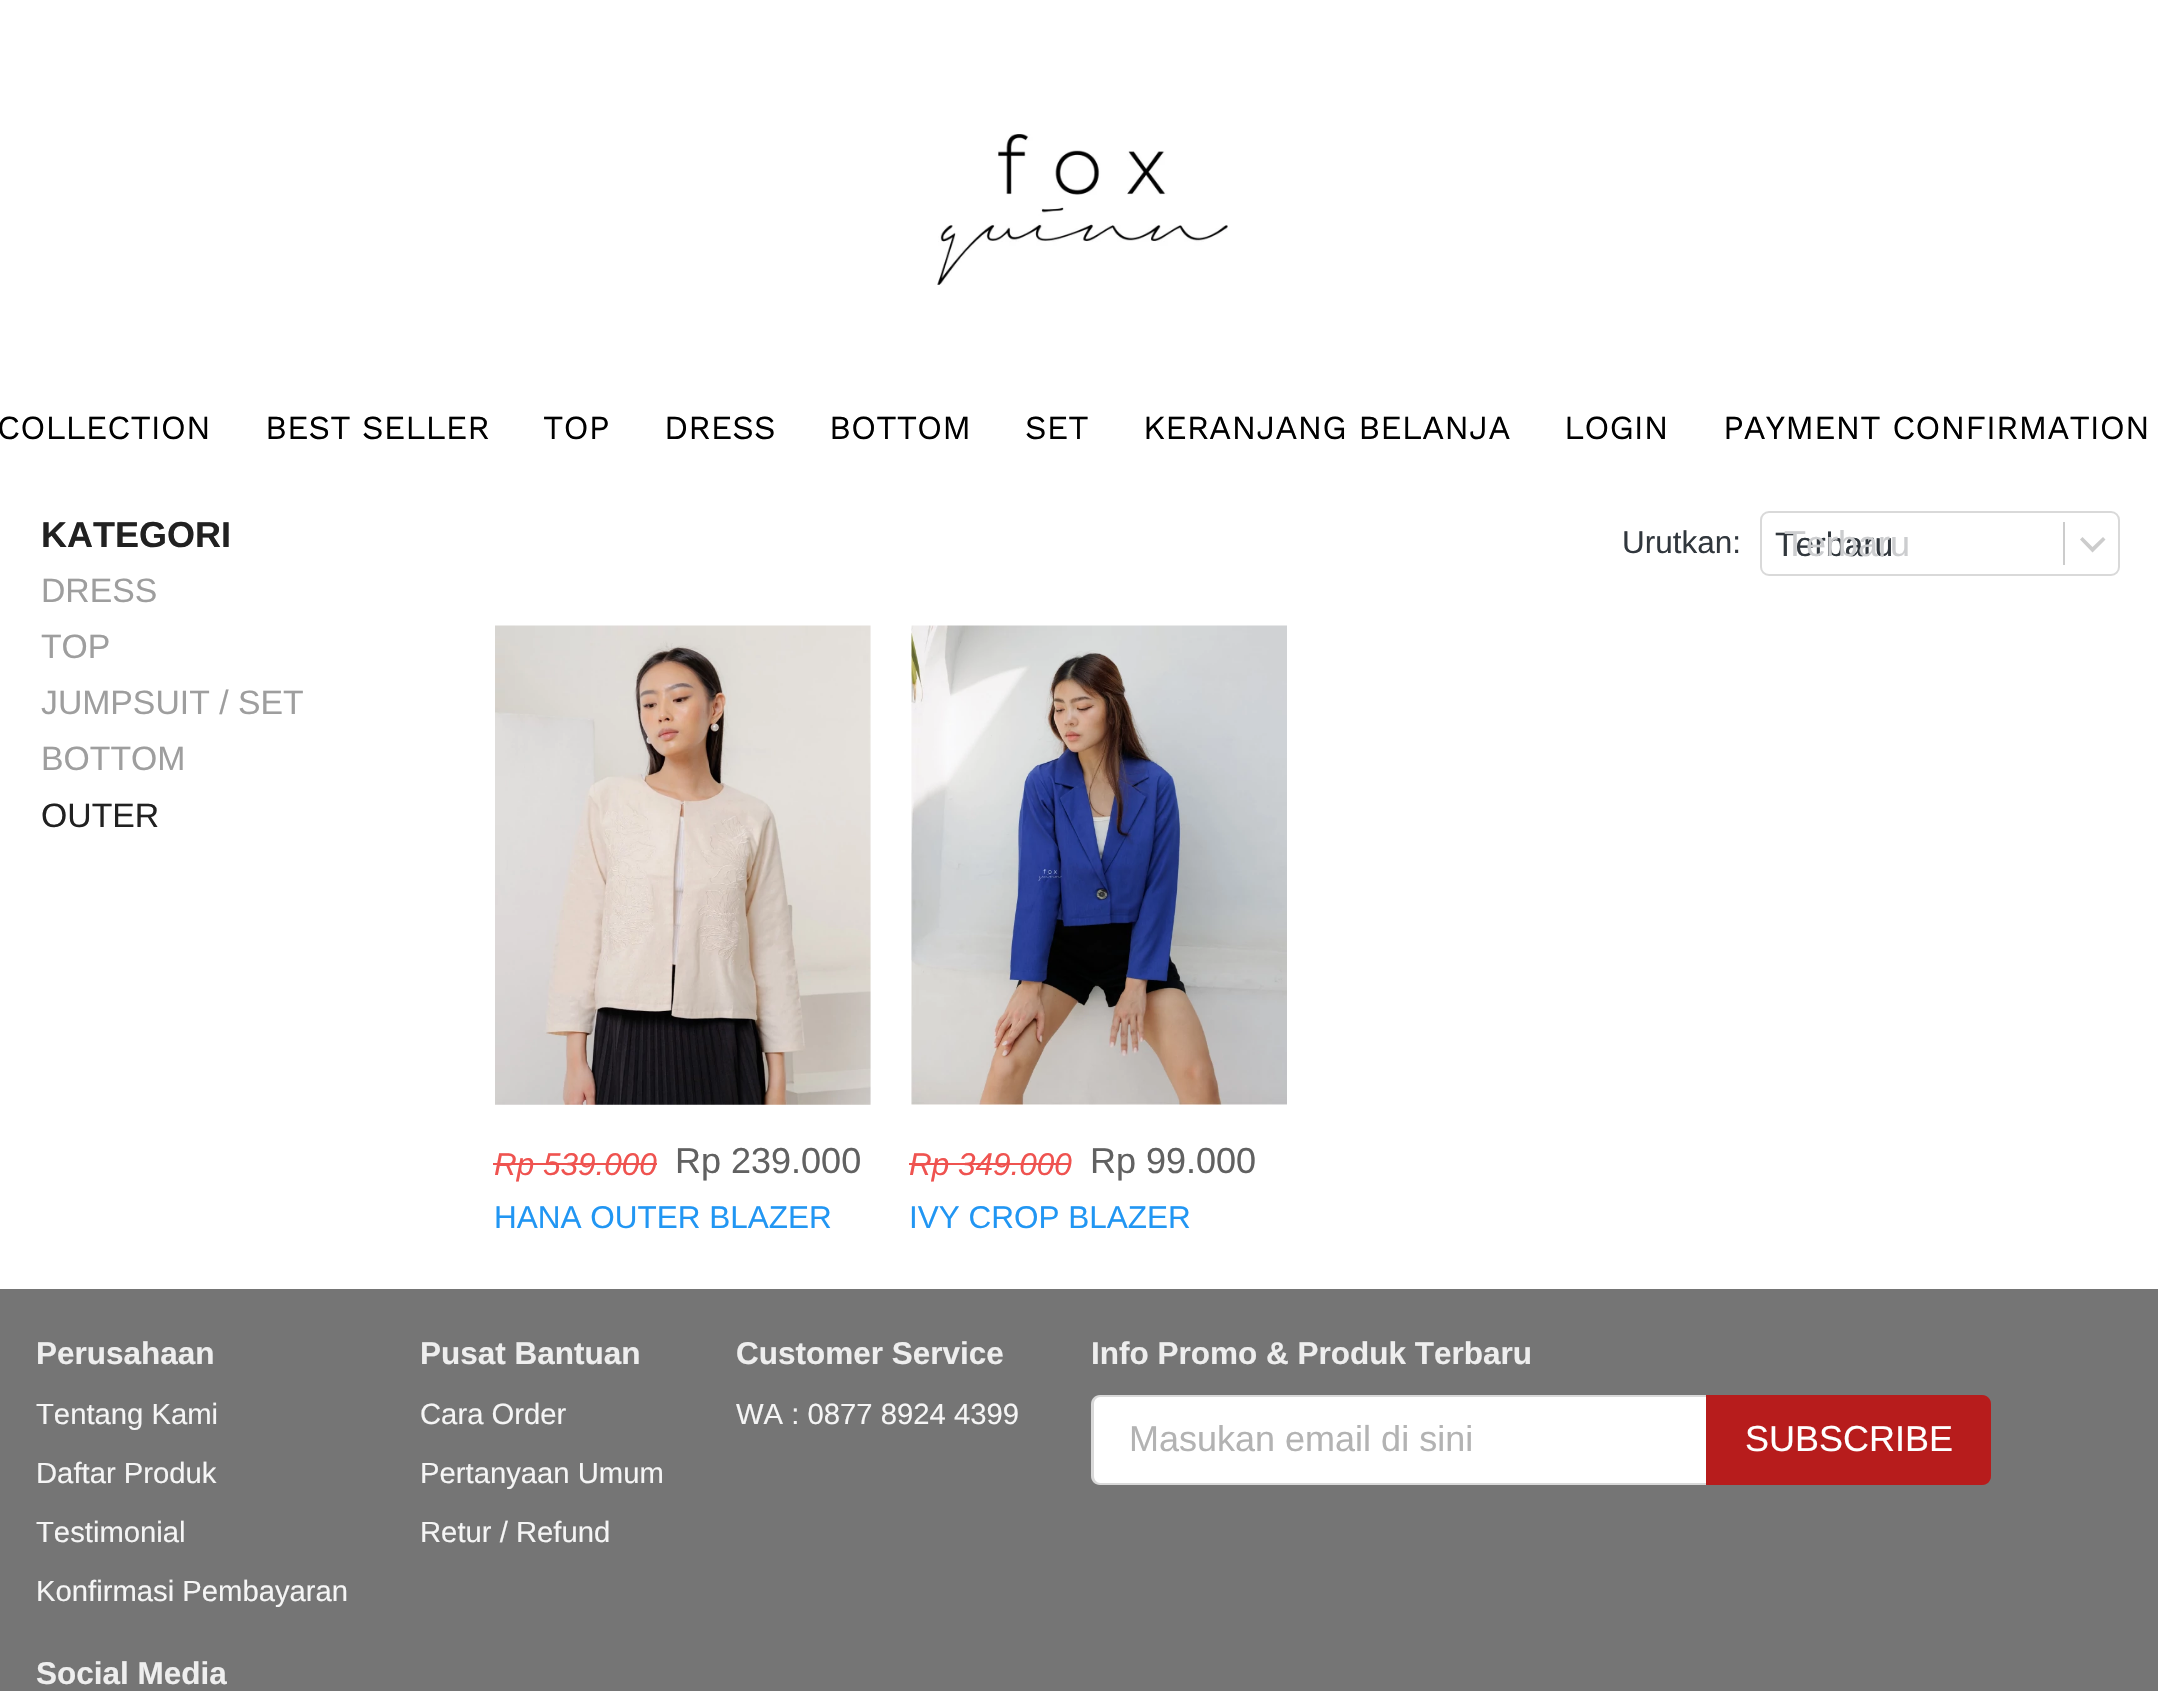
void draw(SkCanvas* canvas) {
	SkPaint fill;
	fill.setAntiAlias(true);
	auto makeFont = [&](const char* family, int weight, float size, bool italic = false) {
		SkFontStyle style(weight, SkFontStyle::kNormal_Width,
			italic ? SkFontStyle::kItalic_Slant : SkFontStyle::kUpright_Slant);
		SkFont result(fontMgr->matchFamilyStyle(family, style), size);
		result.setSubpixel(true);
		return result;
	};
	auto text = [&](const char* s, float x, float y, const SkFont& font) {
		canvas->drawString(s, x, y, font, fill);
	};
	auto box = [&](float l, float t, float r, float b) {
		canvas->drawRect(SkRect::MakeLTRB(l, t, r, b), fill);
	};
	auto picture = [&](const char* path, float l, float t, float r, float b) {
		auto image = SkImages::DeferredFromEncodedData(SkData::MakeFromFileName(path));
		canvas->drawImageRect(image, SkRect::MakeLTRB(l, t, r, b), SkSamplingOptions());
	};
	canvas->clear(0xFFFFFFFF);
	picture("image0.png", 937, 134, 1228, 285);
	fill.setStyle(SkPaint::kStroke_Style);
	fill.setStrokeWidth(2);
	fill.setColor(0xFFD9D9D9);
	canvas->drawRoundRect(SkRect::MakeLTRB(1761, 512, 2119, 575), 8, 8, fill);
	fill.setStyle(SkPaint::kFill_Style);
	fill.setColor(0xFFCCCCCC);
	box(2063, 522, 2065, 565);
	canvas->drawPath(SkPathBuilder().moveTo(2082.5f, 537).lineTo(2080, 539.5f).lineTo(2092.5f, 552.5f).lineTo(2105.5f, 539.5f).lineTo(2103, 537).lineTo(2092.5f, 547).close().detach(), fill);
	picture("image1.png", 495, 625, 871, 1105);
	fill.setColor(0xFFEF5350);
	box(493, 1163, 657, 1165);
	picture("image2.png", 911, 625, 1287, 1105);
	box(909, 1163, 1071, 1165);
	fill.setColor(0xFF757575);
	box(0, 1289, 2158, 1691);
	fill.setColor(0xFFFFFFFF);
	canvas->drawPath(SkPathBuilder().moveTo(1100, 1395).lineTo(1706, 1395).lineTo(1706, 1485).lineTo(1100, 1485).cubicTo(1095, 1485, 1091, 1481, 1091, 1476).lineTo(1091, 1404).cubicTo(1091, 1399, 1095, 1395, 1100, 1395).close().detach(), fill);
	fill.setColor(0x26000000);
	canvas->drawPath(SkPathBuilder(SkPathFillType::kEvenOdd).moveTo(1100, 1395).lineTo(1706, 1395).lineTo(1706, 1485).lineTo(1100, 1485).cubicTo(1095, 1485, 1091, 1481, 1091, 1476).lineTo(1091, 1404).cubicTo(1091, 1399, 1095, 1395, 1100, 1395).close().moveTo(1100, 1397).lineTo(1706, 1397).lineTo(1706, 1483).lineTo(1100, 1483).cubicTo(1097, 1483, 1094, 1480, 1094, 1476).lineTo(1094, 1404).cubicTo(1094, 1400, 1097, 1397, 1100, 1397).close().detach(), fill);
	fill.setColor(0xFFB71C1C);
	canvas->drawPath(SkPathBuilder().moveTo(1706, 1395).lineTo(1982, 1395).cubicTo(1987, 1395, 1991, 1399, 1991, 1404).lineTo(1991, 1476).cubicTo(1991, 1481, 1987, 1485, 1982, 1485).lineTo(1706, 1485).close().detach(), fill);
	fill.setStyle(SkPaint::kStroke_Style);
	fill.setColor(0x80B71C1C);
	canvas->drawPath(SkPathBuilder().moveTo(1707, 1396).lineTo(1982, 1396).cubicTo(1986.5f, 1396, 1990, 1399.5f, 1990, 1404).lineTo(1990, 1476).cubicTo(1990, 1480.5f, 1986.5f, 1484, 1982, 1484).lineTo(1707, 1484).close().detach(), fill);
	auto font1 = makeFont("Work Sans", 400, 33.75f);
	fill.setStyle(SkPaint::kFill_Style);
	fill.setColor(0xFF000000);
	text("COLLECTION", -3, 439, font1);
	text("BEST SELLER", 265, 439, font1);
	text("TOP", 543, 439, font1);
	text("DRESS", 664, 439, font1);
	text("BOTTOM", 829, 439, font1);
	text("SET", 1025, 439, font1);
	text("KERANJANG BELANJA", 1143, 439, font1);
	text("LOGIN", 1564, 439, font1);
	text("PAYMENT CONFIRMATION", 1723, 439, font1);
	auto font2 = makeFont("Liberation Sans", 700, 36);
	fill.setColor(0xFF212121);
	text("KATEGORI", 41, 547, font2);
	auto font3 = makeFont("Liberation Sans", 400, 33.75f);
	fill.setColor(0xFF9E9E9E);
	text("DRESS", 41, 602, font3);
	text("TOP", 41, 658, font3);
	text("JUMPSUIT / SET", 41, 714, font3);
	text("BOTTOM", 41, 770, font3);
	fill.setColor(0xFF212121);
	text("OUTER", 41, 827, font3);
	auto font4 = makeFont("Liberation Sans", 400, 31.5f);
	fill.setColor(0xFF31373D);
	text("Urutkan:", 1622, 553, font4);
	text("Terbaru", 1775, 556, font3);
	auto font5 = makeFont("Liberation Sans", 400, 36);
	fill.setColor(0xFFCCCDCF);
	text("Terbaru", 1784, 556, font5);
	auto font6 = makeFont("Liberation Sans", 400, 31.5f, true);
	fill.setColor(0xFFEF5350);
	text("Rp 539.000", 494, 1175, font6);
	fill.setColor(0xFF616161);
	text("Rp 239.000", 675, 1173, font5);
	fill.setColor(0xFF2196F3);
	text("HANA OUTER BLAZER", 494, 1228, font4);
	fill.setColor(0xFFEF5350);
	text("Rp 349.000", 909, 1175, font6);
	fill.setColor(0xFF616161);
	text("Rp 99.000", 1090, 1173, font5);
	fill.setColor(0xFF2196F3);
	text("IVY CROP BLAZER", 909, 1228, font4);
	auto font7 = makeFont("Liberation Sans", 700, 31.5f);
	fill.setColor(0xFFEEEEEE);
	text("Perusahaan", 36, 1364, font7);
	auto font8 = makeFont("Liberation Sans", 400, 29.25f);
	fill.setColor(0xFFF5F5F5);
	text("Tentang Kami", 36, 1424, font8);
	text("Daftar Produk", 36, 1483, font8);
	text("Testimonial", 36, 1542, font8);
	text("Konfirmasi Pembayaran", 36, 1601, font8);
	fill.setColor(0xFFEEEEEE);
	text("Pusat Bantuan", 420, 1364, font7);
	fill.setColor(0xFFF5F5F5);
	text("Cara Order", 420, 1424, font8);
	text("Pertanyaan Umum", 420, 1483, font8);
	text("Retur / Refund", 420, 1542, font8);
	fill.setColor(0xFFEEEEEE);
	text("Customer Service", 736, 1364, font7);
	fill.setColor(0xFFF5F5F5);
	text("WA : 0877 8924 4399", 736, 1424, font8);
	fill.setColor(0xFFEEEEEE);
	text("Info Promo & Produk Terbaru", 1091, 1364, font7);
	fill.setColor(0xFFB3B3B3);
	text("Masukan email di sini", 1129, 1451, font5);
	fill.setColor(0xFFFFFFFF);
	text("SUBSCRIBE", 1745, 1451, font5);
	fill.setColor(0xFFEEEEEE);
	text("Social Media", 36, 1684, font7);
}
